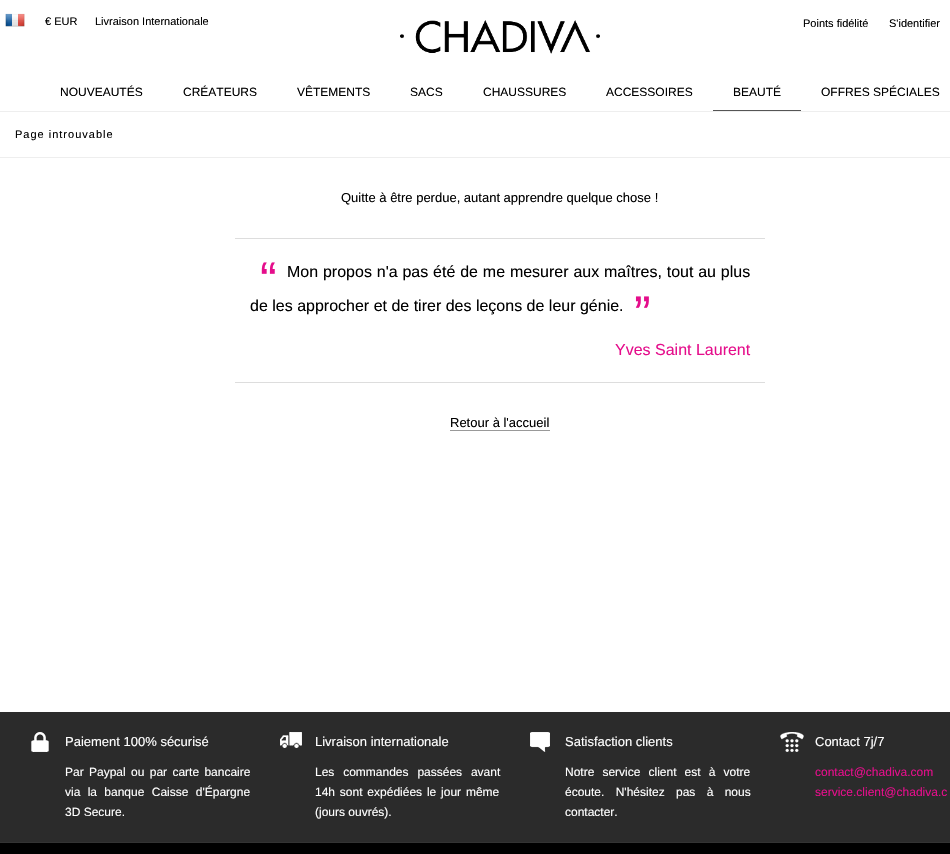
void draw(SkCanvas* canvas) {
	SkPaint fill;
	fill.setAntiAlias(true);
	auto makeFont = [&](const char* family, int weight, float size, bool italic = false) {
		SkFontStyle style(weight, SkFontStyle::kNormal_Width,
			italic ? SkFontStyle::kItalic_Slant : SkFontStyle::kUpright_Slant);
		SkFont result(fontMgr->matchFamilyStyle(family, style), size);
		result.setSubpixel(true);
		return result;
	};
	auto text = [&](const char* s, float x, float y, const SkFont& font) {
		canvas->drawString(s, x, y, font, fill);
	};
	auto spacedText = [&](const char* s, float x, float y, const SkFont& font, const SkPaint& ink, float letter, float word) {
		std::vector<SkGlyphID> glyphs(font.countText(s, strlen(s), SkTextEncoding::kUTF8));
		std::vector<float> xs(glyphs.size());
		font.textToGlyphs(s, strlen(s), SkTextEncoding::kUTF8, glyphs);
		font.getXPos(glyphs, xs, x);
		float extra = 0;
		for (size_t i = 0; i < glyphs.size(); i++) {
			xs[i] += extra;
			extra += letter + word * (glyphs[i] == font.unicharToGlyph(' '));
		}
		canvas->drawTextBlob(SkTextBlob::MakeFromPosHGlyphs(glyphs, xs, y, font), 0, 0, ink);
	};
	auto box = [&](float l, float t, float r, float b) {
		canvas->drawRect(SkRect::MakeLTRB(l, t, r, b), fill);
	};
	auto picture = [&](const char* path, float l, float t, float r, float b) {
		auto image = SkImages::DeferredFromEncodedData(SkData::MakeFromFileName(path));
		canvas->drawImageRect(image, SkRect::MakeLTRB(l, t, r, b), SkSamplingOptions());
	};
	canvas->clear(0xFFFFFFFF);
	fill.setColor(0xFFEEEEEE);
	box(0, 111, 950, 112);
	picture("image0.png", 5, 13, 25, 27);
	picture("image1.png", 400, 20, 600, 54);
	fill.setColor(0xFF555555);
	box(713, 110, 801, 111);
	fill.setColor(0xFFEEEEEE);
	box(0, 157, 950, 158);
	fill.setColor(0xFFDDDDDD);
	box(235, 238, 765, 239);
	box(235, 382, 765, 383);
	fill.setColor(0xFF999999);
	box(450, 430, 550, 431);
	fill.setColor(0xFF2B2B2B);
	box(0, 712, 950, 842);
	fill.setColor(0xFF333333);
	box(0, 842, 950, 843);
	picture("image2.png", 31, 732, 49, 752);
	picture("image3.png", 280, 732, 302, 748);
	picture("image4.png", 530, 732, 550, 752);
	picture("image5.png", 780, 732, 804, 752);
	fill.setColor(0xFF000000);
	box(0, 843, 950, 854);
	auto font1 = makeFont("Liberation Sans", 400, 11);
	text("€ EUR", 45, 25, font1);
	text("Livraison Internationale", 95, 25, font1);
	text("Points fidélité", 803, 27, font1);
	text("S'identifier", 889, 27, font1);
	auto font2 = makeFont("Liberation Sans", 400, 12);
	text("NOUVEAUTÉS", 60, 96, font2);
	text("CRÉATEURS", 183, 96, font2);
	text("VÊTEMENTS", 297, 96, font2);
	text("SACS", 410, 96, font2);
	text("CHAUSSURES", 483, 96, font2);
	text("ACCESSOIRES", 606, 96, font2);
	text("BEAUTÉ", 733, 96, font2);
	text("OFFRES SPÉCIALES", 821, 96, font2);
	spacedText("Page introuvable", 15, 138, font1, fill, 1, 0);
	auto font3 = makeFont("Liberation Sans", 400, 13);
	text("Quitte à être perdue, autant apprendre quelque chose !", 341, 202, font3);
	auto font4 = makeFont("Liberation Sans", 400, 50);
	fill.setColor(0xFFE50D8B);
	text("“", 260, 297, font4);
	auto font5 = makeFont("Liberation Sans", 400, 16);
	fill.setColor(0xFF000000);
	spacedText("Mon propos n'a pas été de me mesurer aux maîtres, tout au plus", 287, 277, font5, fill, 0, 0.4f);
	text("de les approcher et de tirer des leçons de leur génie.", 250, 311, font5);
	fill.setColor(0xFFE50D8B);
	text("”", 634, 331, font4);
	text("Yves Saint Laurent", 615, 355, font5);
	fill.setColor(0xFF000000);
	text("Retour à l'accueil", 450, 427, font3);
	fill.setColor(0xFFFFFFFF);
	text("Paiement 100% sécurisé", 65, 746, font3);
	spacedText("Par Paypal ou par carte bancaire", 65, 776, font2, fill, 0, 2);
	spacedText("via la banque Caisse d'Épargne", 65, 796, font2, fill, 0, 4);
	text("3D Secure.", 65, 816, font2);
	text("Livraison internationale", 315, 746, font3);
	spacedText("Les commandes passées avant", 315, 776, font2, fill, 0, 5.5f);
	spacedText("14h sont expédiées le jour même", 315, 796, font2, fill, 0, 1.5f);
	text("(jours ouvrés).", 315, 816, font2);
	text("Satisfaction clients", 565, 746, font3);
	spacedText("Notre service client est à votre", 565, 776, font2, fill, 0, 4.75f);
	spacedText("écoute. N'hésitez pas à nous", 565, 796, font2, fill, 0, 8);
	text("contacter.", 565, 816, font2);
	text("Contact 7j/7", 815, 746, font3);
	fill.setColor(0xFFE50D8B);
	text("contact@chadiva.com", 815, 776, font2);
	text("service.client@chadiva.c", 815, 796, font2);
}
